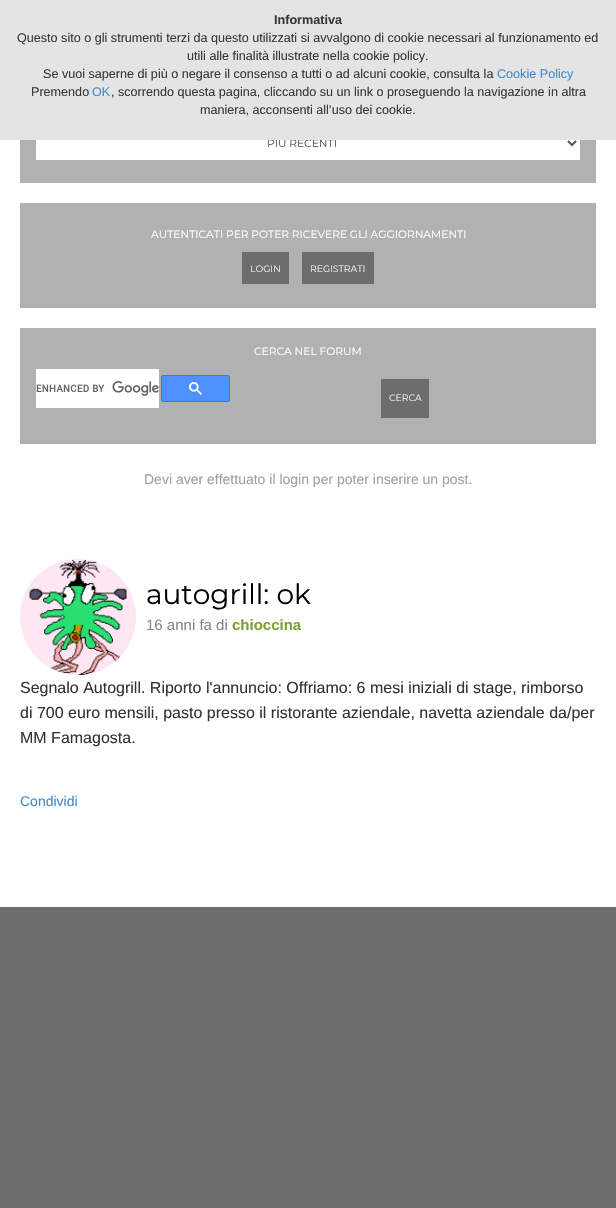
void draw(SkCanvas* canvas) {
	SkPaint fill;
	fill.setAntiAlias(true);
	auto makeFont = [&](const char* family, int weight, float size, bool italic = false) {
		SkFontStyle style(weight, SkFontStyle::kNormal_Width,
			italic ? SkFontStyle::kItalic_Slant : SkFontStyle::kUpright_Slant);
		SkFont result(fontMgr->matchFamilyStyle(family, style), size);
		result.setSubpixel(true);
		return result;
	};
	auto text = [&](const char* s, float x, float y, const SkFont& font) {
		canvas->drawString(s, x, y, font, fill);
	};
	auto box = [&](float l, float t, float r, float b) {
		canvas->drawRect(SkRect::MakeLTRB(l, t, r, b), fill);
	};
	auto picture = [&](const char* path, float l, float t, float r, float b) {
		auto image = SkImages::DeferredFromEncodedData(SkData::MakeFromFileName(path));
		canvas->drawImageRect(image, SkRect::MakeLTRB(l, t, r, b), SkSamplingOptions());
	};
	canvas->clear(0xFFFFFFFF);
	fill.setColor(0xFFB1B1B1);
	box(20, 140, 596, 183);
	fill.setColor(0xFFFFFFFF);
	box(36, 140, 580, 160);
	fill.setStyle(SkPaint::kStroke_Style);
	fill.setStrokeWidth(2);
	fill.setColor(0xFF555555);
	canvas->drawPath(SkPathBuilder().moveTo(568, 141).lineTo(572, 145).lineTo(576, 141).detach(), fill);
	fill.setStyle(SkPaint::kFill_Style);
	fill.setColor(0xFFB1B1B1);
	box(20, 203, 596, 308);
	fill.setColor(0xFF6D6D6D);
	box(242, 252, 289, 284);
	box(302, 252, 374, 284);
	fill.setColor(0xFFB1B1B1);
	box(20, 328, 596, 444);
	fill.setColor(0xFFFFFFFF);
	box(36, 369, 159, 408);
	picture("image0.png", 36, 381, 159, 396);
	fill.setColor(0xFF4D90FE);
	canvas->drawRoundRect(SkRect::MakeLTRB(161.5f, 375.5f, 229.5f, 401.5f), 1.5f, 1.5f, fill);
	fill.setStyle(SkPaint::kStroke_Style);
	fill.setStrokeWidth(1);
	fill.setColor(0xFF3079ED);
	canvas->drawRoundRect(SkRect::MakeLTRB(161.5f, 375.5f, 229.5f, 401.5f), 1.5f, 1.5f, fill);
	picture("image1.png", 189, 382, 202, 395);
	fill.setStyle(SkPaint::kFill_Style);
	fill.setColor(0xFF6D6D6D);
	box(381, 379, 429, 418);
	picture("image2.png", 20, 559, 136, 675);
	box(0, 907, 616, 1208);
	auto font1 = makeFont("Montserrat", 400, 10.7f);
	fill.setColor(0xFF555555);
	text("PIÙ RECENTI", 267, 147, font1);
	fill.setColor(0xFFE4E4E4);
	box(0, 0, 616, 140);
	auto font2 = makeFont("Liberation Sans", 400, 12.6f);
	fill.setColor(0xFF393939);
	text("maniera, acconsenti all’uso dei cookie.", 200, 114, font2);
	text(", scorrendo questa pagina, cliccando su un link o proseguendo la navigazione in altra", 111, 96, font2);
	fill.setColor(0xFF428BCA);
	text("OK", 92, 96, font2);
	fill.setColor(0xFF393939);
	text("Premendo", 31, 96, font2);
	fill.setColor(0xFF428BCA);
	text("Cookie Policy", 497, 78, font2);
	fill.setColor(0xFF393939);
	text("Se vuoi saperne di più o negare il consenso a tutti o ad alcuni cookie, consulta la", 43, 78, font2);
	text("utili alle finalità illustrate nella cookie policy.", 187, 60, font2);
	text("Questo sito o gli strumenti terzi da questo utilizzati si avvalgono di cookie necessari al funzionamento ed", 17, 42, font2);
	auto font3 = makeFont("Liberation Sans", 700, 12.6f);
	text("Informativa", 274, 24, font3);
	fill.setColor(0xFFFFFFFF);
	text("AUTENTICATI PER POTER RICEVERE GLI AGGIORNAMENTI", 151, 238, font1);
	auto font4 = makeFont("Montserrat", 400, 9.25f);
	fill.setColor(0xFFEBEBEB);
	text("LOGIN", 250, 272, font4);
	text("REGISTRATI", 310, 272, font4);
	fill.setColor(0xFFFFFFFF);
	text("CERCA NEL FORUM", 254, 355, font1);
	fill.setColor(0xFFEBEBEB);
	text("CERCA", 389, 401, font4);
	auto font5 = makeFont("Liberation Sans", 400, 14);
	fill.setColor(0xFFA1A1A1);
	text("Devi aver effettuato il login per poter inserire un post.", 144, 484, font5);
	auto font6 = makeFont("Montserrat", 400, 28);
	fill.setColor(0xFF000000);
	text("autogrill: ok", 146, 604, font6);
	auto font7 = makeFont("Liberation Sans", 400, 15);
	fill.setColor(0xFF868686);
	text("16 anni fa di", 146, 630, font7);
	auto font8 = makeFont("Liberation Sans", 700, 15);
	fill.setColor(0xFF7DA134);
	text("chioccina", 232, 630, font8);
	auto font9 = makeFont("Liberation Sans", 400, 16);
	fill.setColor(0xFF333333);
	text("Segnalo Autogrill. Riporto l'annuncio: Offriamo: 6 mesi iniziali di stage, rimborso", 20, 693, font9);
	text("di 700 euro mensili, pasto presso il ristorante aziendale, navetta aziendale da/per", 20, 718, font9);
	text("MM Famagosta.", 20, 743, font9);
	fill.setColor(0xFF428BCA);
	text("Condividi", 20, 806, font5);
}
